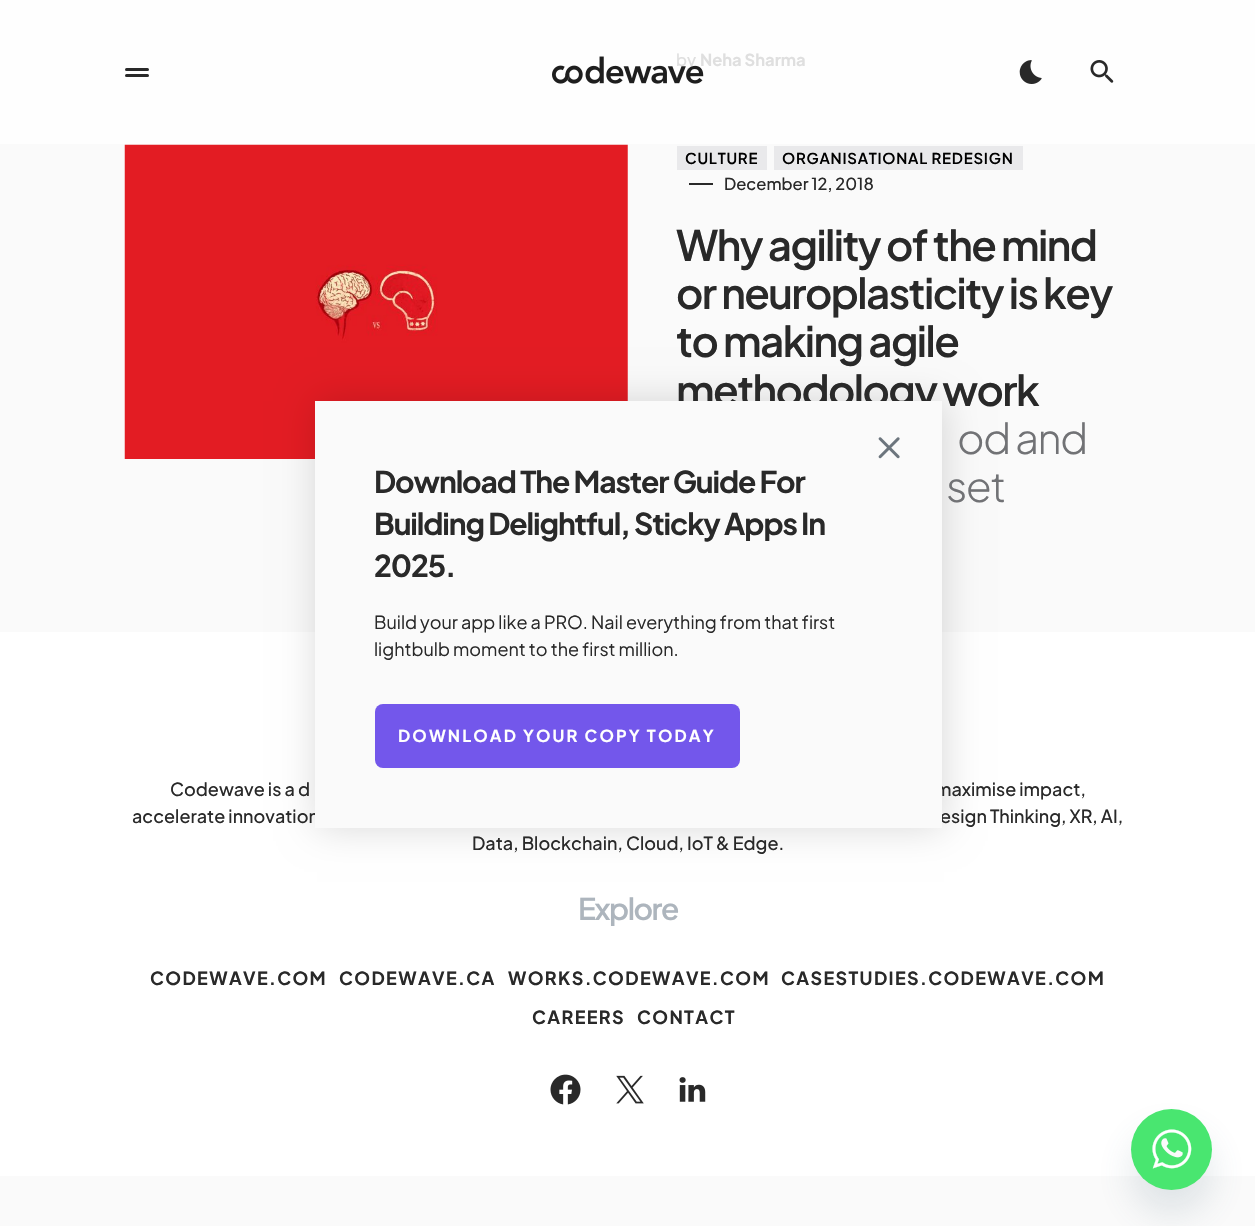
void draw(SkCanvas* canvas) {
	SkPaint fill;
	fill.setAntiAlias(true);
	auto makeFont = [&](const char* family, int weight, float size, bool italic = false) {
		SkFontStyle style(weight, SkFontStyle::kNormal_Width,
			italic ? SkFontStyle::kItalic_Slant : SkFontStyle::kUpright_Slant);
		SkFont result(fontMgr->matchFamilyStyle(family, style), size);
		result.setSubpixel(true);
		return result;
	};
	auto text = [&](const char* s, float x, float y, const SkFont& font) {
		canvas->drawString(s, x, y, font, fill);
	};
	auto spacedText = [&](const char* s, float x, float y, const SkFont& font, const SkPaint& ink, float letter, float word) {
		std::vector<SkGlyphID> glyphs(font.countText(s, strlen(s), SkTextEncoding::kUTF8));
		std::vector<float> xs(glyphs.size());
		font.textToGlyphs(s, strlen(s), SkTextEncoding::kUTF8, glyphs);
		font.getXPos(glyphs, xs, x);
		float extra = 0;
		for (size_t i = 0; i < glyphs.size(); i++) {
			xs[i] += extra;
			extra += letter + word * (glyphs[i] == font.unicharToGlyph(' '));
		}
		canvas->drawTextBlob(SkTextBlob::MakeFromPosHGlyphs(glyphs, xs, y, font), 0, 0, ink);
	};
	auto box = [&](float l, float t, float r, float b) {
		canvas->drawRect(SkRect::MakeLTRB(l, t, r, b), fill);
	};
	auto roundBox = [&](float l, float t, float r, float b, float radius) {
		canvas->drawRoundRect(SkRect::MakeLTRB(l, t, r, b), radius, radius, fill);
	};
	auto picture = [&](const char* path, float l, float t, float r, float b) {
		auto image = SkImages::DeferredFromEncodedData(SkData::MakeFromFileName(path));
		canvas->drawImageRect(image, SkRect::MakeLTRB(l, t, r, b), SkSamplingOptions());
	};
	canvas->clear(0xFFFAFAFA);
	fill.setColor(0xFFFEFEFE);
	box(0, 0, 1255, 144);
	picture("image0.png", 124, 144, 628, 459);
	fill.setColor(0xFFE9E9EB);
	box(677, 146, 767, 170);
	box(774, 146, 1023, 170);
	fill.setColor(0xFF292929);
	box(689, 183, 713, 185);
	roundBox(125, 68, 149, 71, 1.5f);
	roundBox(125, 74, 149, 77, 1.5f);
	picture("image2.png", 1019, 60, 1042, 84);
	picture("image3.png", 1090, 60, 1114, 83);
	fill.setColor(0xFFFFFFFF);
	box(0, 632, 1255, 1176);
	picture("image4.png", 550, 1074, 581, 1105);
	picture("image5.png", 616, 1075, 644, 1104);
	picture("image6.png", 679, 1077, 706, 1102);
	fill.setColor(0x26000000);
	fill.setMaskFilter(SkMaskFilter::MakeBlur(kNormal_SkBlurStyle, 18));
	canvas->drawRect(SkRect::MakeLTRB(317, 401, 944, 828), fill);
	fill.setMaskFilter(nullptr);
	fill.setColor(0x2949687E);
	fill.setMaskFilter(SkMaskFilter::MakeBlur(kNormal_SkBlurStyle, 18));
	canvas->drawRoundRect(SkRect::MakeLTRB(1131, 1133, 1212, 1214), 40.5f, 40.5f, fill);
	fill.setMaskFilter(nullptr);
	fill.setColor(0xFF49E670);
	canvas->drawCircle(1171.5f, 1149.5f, 40.5f, fill);
	picture("image8.png", 1152, 1129, 1192, 1169);
	auto font1 = makeFont("Plus Jakarta Sans", 500, 16.5f);
	fill.setColor(0xFFDFDFDF);
	text("by", 676, 66, font1);
	auto font2 = makeFont("Plus Jakarta Sans", 700, 16.5f);
	text("Neha Sharma", 700, 66, font2);
	auto font3 = makeFont("Plus Jakarta Sans", 600, 15);
	fill.setColor(0xFF000000);
	spacedText("CULTURE", 685, 164, font3, fill, 0.75f, 0);
	spacedText("ORGANISATIONAL REDESIGN", 782, 164, font3, fill, 0.75f, 0);
	fill.setColor(0xFF292929);
	text("December 12, 2018", 724, 190, font1);
	auto font4 = makeFont("Plus Jakarta Sans", 600, 42);
	spacedText("Why agility of the mind", 676, 261, font4, fill, -1.6f, 0);
	spacedText("or neuroplasticity is key", 676, 309, font4, fill, -1.6f, 0);
	spacedText("to making agile", 676, 357, font4, fill, -1.6f, 0);
	spacedText("methodology work", 676, 406, font4, fill, -1.6f, 0);
	auto font5 = makeFont("Plus Jakarta Sans", 300, 42);
	fill.setColor(0xFF717275);
	spacedText("od and", 957, 454, font5, fill, -1.6f, 0);
	spacedText("set", 946, 502, font5, fill, -1.6f, 0);
	picture("image1.png", 552, 56, 704, 84);
	auto font6 = makeFont("Plus Jakarta Sans", 500, 18);
	fill.setColor(0xFF292929);
	text("Codewave is a d", 170, 796, font6);
	text("maximise impact,", 935, 796, font6);
	text("accelerate innovation", 132, 823, font6);
	text("esign Thinking, XR, AI,", 940, 823, font6);
	text("Data, Blockchain, Cloud, IoT & Edge.", 472, 850, font6);
	auto font7 = makeFont("Plus Jakarta Sans", 600, 30);
	fill.setColor(0xFFADB5BD);
	spacedText("Explore", 578, 920, font7, fill, -1.5f, 0);
	auto font8 = makeFont("Plus Jakarta Sans", 700, 18);
	fill.setColor(0xFF292929);
	spacedText("CODEWAVE.COM", 150, 985, font8, fill, 1.35f, 0);
	spacedText("CODEWAVE.CA", 339, 985, font8, fill, 1.35f, 0);
	spacedText("WORKS.CODEWAVE.COM", 508, 985, font8, fill, 1.35f, 0);
	spacedText("CASESTUDIES.CODEWAVE.COM", 781, 985, font8, fill, 1.35f, 0);
	spacedText("CAREERS", 532, 1024, font8, fill, 1.35f, 0);
	spacedText("CONTACT", 637, 1024, font8, fill, 1.35f, 0);
	fill.setColor(0xFFFAFAFA);
	box(315, 401, 942, 828);
	picture("image7.png", 878, 437, 900, 459);
	auto font9 = makeFont("Plus Jakarta Sans", 700, 30);
	fill.setColor(0xFF292929);
	spacedText("Download The Master Guide For", 374, 493, font9, fill, -1.1f, 0);
	spacedText("Building Delightful, Sticky Apps In", 374, 535, font9, fill, -1.1f, 0);
	spacedText("2025.", 374, 577, font9, fill, -1.1f, 0);
	auto font10 = makeFont("Plus Jakarta Sans", 400, 18);
	text("Build your app like a PRO. Nail everything from that first", 374, 629, font10);
	text("lightbulb moment to the first million.", 374, 656, font10);
	fill.setColor(0xFF7357EB);
	roundBox(375, 704, 740, 768, 8);
	fill.setColor(0xFFFFFFFF);
	spacedText("DOWNLOAD YOUR COPY TODAY", 398, 742, font2, fill, 2.1f, 0);
}
